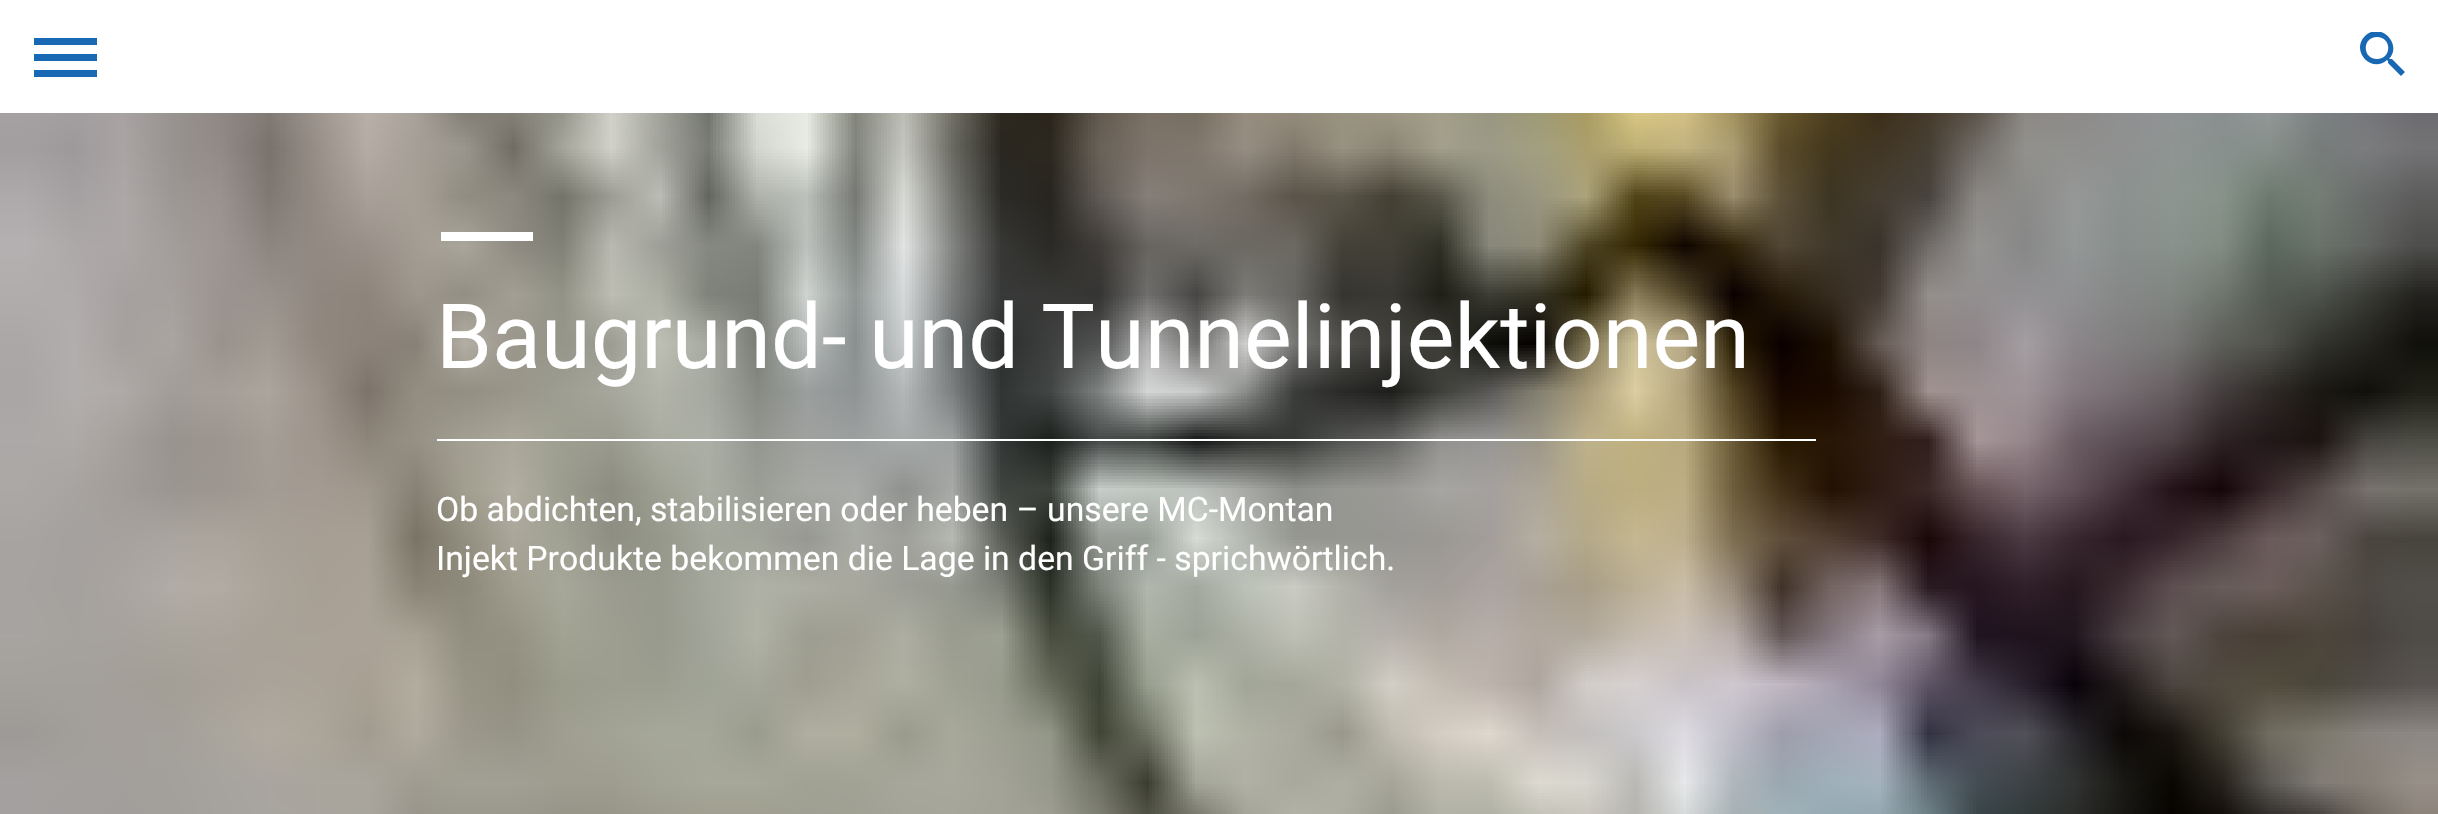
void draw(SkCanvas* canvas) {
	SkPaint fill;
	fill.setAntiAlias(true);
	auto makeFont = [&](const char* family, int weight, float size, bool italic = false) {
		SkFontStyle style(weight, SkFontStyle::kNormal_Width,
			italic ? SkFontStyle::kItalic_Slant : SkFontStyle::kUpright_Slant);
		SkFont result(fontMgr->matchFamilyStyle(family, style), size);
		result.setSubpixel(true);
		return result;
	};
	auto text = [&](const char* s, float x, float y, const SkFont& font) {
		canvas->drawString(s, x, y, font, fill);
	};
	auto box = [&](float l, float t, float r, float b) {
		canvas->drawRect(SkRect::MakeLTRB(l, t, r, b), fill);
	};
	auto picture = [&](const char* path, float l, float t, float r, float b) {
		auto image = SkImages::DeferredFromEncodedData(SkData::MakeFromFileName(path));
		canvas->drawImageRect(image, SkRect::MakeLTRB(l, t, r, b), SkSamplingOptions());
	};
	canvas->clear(0xFFFFFFFF);
	fill.setColor(0xFF1968B3);
	box(34, 38, 97, 45);
	box(34, 54, 97, 61);
	box(34, 70, 97, 77);
	canvas->save();
	canvas->clipRect(SkRect::MakeLTRB(2360, 32, 2405, 77));
	canvas->drawPath(SkPathBuilder().moveTo(2392, 59).lineTo(2390, 59).lineTo(2389, 59).cubicTo(2403, 44, 2380, 21, 2365, 36).cubicTo(2350, 51, 2372, 74, 2387, 60).lineTo(2388, 61).lineTo(2388, 63).lineTo(2401, 76).lineTo(2405, 72).close().moveTo(2377, 59).cubicTo(2362, 59, 2362, 37, 2377, 37).cubicTo(2392, 37, 2392, 59, 2377, 59).close().detach(), fill);
	canvas->restore();
	picture("image0.png", 0, 113, 2438, 814);
	fill.setColor(0xFFFFFFFF);
	box(441, 232, 533, 241);
	box(437, 439, 1816, 441);
	auto font1 = makeFont("Roboto", 400, 90);
	text("Baugrund- und Tunnelinjektionen", 436, 368, font1);
	auto font2 = makeFont("Roboto", 400, 33.75f);
	text("Ob abdichten, stabilisieren oder heben – unsere MC-Montan", 436, 521, font2);
	text("Injekt Produkte bekommen die Lage in den Griff - sprichwörtlich.", 436, 570, font2);
}
